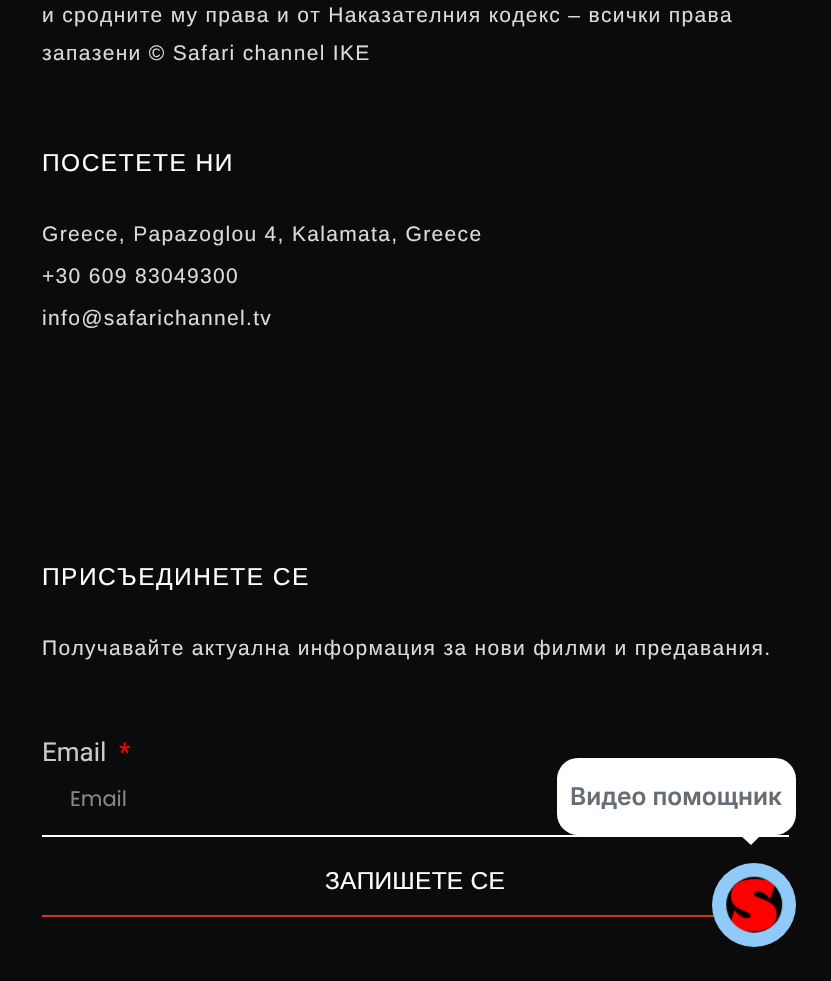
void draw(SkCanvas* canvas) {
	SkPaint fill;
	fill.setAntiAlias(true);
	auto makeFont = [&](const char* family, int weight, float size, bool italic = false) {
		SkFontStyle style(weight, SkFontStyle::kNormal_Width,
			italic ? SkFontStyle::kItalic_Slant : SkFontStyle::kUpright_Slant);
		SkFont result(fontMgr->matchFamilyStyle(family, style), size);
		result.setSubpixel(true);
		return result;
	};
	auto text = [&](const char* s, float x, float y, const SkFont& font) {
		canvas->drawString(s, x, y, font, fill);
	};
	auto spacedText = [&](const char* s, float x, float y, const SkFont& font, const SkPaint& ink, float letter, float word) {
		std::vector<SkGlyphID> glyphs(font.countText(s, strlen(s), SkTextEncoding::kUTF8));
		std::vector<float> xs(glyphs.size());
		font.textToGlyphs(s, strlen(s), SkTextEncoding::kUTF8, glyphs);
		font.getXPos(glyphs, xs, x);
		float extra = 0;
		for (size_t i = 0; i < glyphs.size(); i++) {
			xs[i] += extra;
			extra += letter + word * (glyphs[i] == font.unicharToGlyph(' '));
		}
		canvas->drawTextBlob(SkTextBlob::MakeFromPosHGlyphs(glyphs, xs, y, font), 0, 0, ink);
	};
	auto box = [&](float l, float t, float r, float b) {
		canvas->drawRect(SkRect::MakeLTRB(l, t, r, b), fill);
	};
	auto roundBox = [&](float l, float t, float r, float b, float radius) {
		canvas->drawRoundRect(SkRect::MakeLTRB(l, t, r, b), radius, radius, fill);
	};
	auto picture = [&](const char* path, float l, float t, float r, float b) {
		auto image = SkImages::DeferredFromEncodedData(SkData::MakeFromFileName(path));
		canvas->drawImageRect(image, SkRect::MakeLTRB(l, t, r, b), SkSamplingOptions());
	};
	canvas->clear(0xFF0B0B0B);
	fill.setColor(0xFFFFFFFF);
	box(42, 835, 789, 837);
	fill.setColor(0xFFCB3522);
	box(42, 915, 714, 917);
	fill.setColor(0xFFFFFFFF);
	roundBox(557, 758, 796, 835, 21);
	canvas->drawPath(SkPathBuilder().moveTo(740, 835).lineTo(761, 835).lineTo(751, 845).close().detach(), fill);
	fill.setColor(0xFF90CAF9);
	canvas->drawCircle(754, 905, 42, fill);
	picture("image0.png", 726, 876, 783, 933);
	auto font1 = makeFont("Liberation Sans", 400, 21);
	fill.setColor(0xFFDADADA);
	spacedText("и сродните му права и от Наказателния кодекс – всички права", 42, 22, font1, fill, 1.33f, 0);
	spacedText("запазени © Safari channel IKE", 42, 60, font1, fill, 1.33f, 0);
	auto font2 = makeFont("Liberation Sans", 400, 24.5f);
	fill.setColor(0xFFFFFFFF);
	spacedText("ПОСЕТЕТЕ НИ", 42, 171, font2, fill, 1.5f, 0);
	fill.setColor(0xFFDADADA);
	spacedText("Greece, Papazoglou 4, Kalamata, Greece", 42, 241, font1, fill, 1.33f, 0);
	spacedText("+30 609 83049300", 42, 283, font1, fill, 1.33f, 0);
	spacedText("info@safarichannel.tv", 42, 325, font1, fill, 1.33f, 0);
	fill.setColor(0xFFFFFFFF);
	spacedText("ПРИСЪЕДИНЕТЕ СЕ", 42, 585, font2, fill, 1.5f, 0);
	fill.setColor(0xFFDADADA);
	spacedText("Получавайте актуална информация за нови филми и предавания.", 42, 655, font1, fill, 1.33f, 0);
	auto font3 = makeFont("Roboto", 400, 26);
	fill.setColor(0xFFCBC9C9);
	text("Email", 42, 761, font3);
	fill.setColor(0xFFFF0000);
	text("*", 119, 761, font3);
	auto font4 = makeFont("Poppins", 400, 21);
	fill.setColor(0xFF878787);
	text("Email", 70, 806, font4);
	fill.setColor(0xFFFFFFFF);
	spacedText("ЗАПИШЕТЕ СЕ", 325, 889, font2, fill, 0.25f, 0);
	auto font5 = makeFont("Inter", 600, 24.5f);
	fill.setColor(0xFF656D75);
	text("Видео помощник", 570, 805, font5);
}
